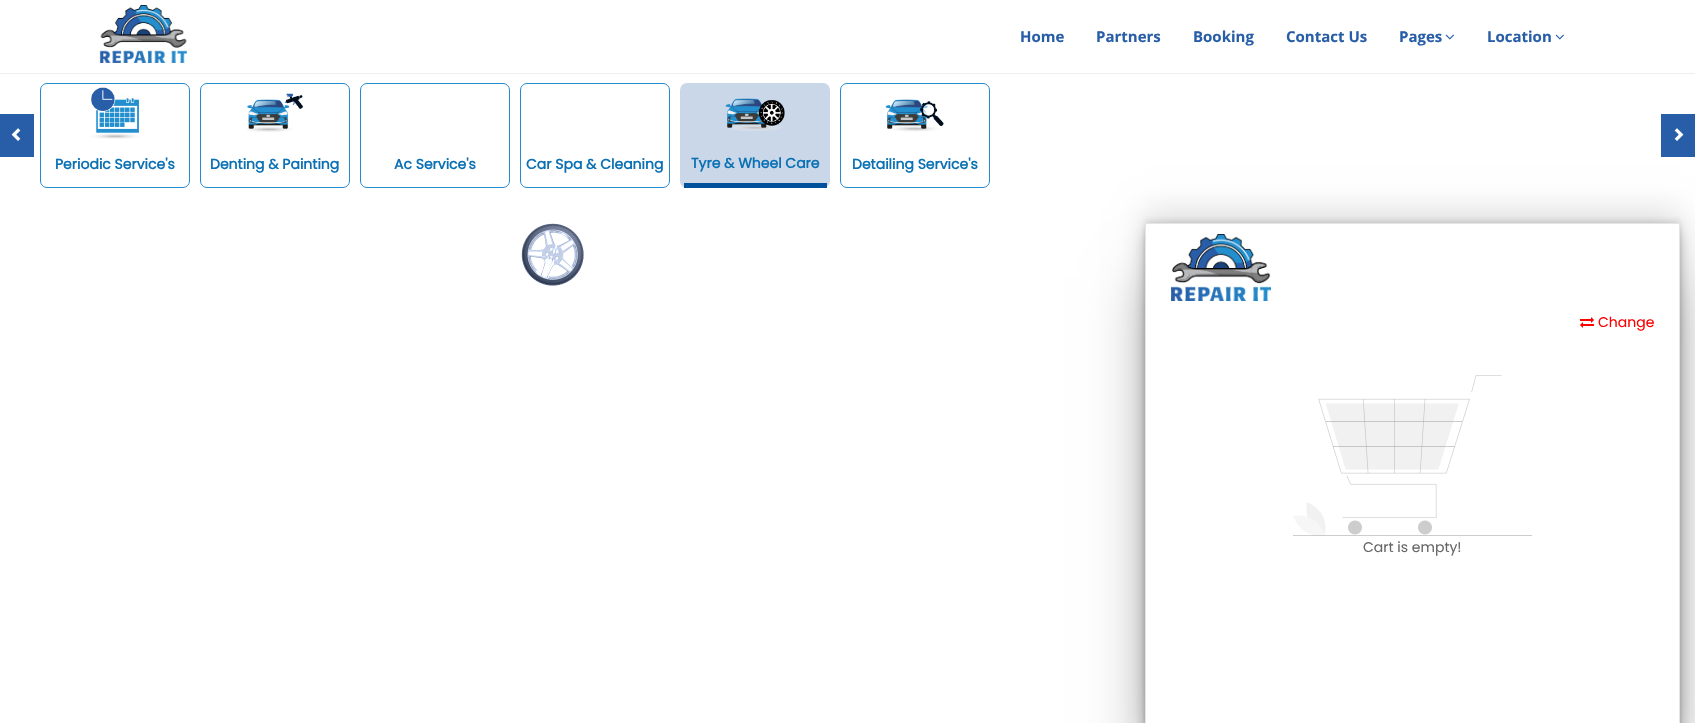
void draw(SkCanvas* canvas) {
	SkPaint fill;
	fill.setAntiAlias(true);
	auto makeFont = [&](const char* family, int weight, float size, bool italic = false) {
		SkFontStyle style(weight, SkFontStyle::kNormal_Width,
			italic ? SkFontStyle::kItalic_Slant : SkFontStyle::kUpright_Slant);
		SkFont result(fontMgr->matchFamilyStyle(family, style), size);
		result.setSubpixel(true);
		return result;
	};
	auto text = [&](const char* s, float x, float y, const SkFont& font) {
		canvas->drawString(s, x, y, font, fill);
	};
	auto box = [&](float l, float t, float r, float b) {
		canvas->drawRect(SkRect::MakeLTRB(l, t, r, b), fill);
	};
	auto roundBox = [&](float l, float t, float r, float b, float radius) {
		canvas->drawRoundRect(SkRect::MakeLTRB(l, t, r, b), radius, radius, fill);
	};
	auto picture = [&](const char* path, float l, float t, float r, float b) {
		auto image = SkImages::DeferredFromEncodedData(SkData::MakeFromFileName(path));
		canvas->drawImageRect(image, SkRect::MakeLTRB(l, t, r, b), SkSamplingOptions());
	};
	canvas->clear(0xFFFFFFFF);
	fill.setColor(0xFFEEEEEE);
	box(0, 73, 1695, 74);
	picture("image0.png", 99, 5, 187, 63);
	picture("image1.png", 1445, 34, 1454, 40);
	picture("image1.png", 1555, 34, 1564, 40);
	fill.setColor(0xFF285EA8);
	box(0, 114, 34, 157);
	picture("image2.png", 11, 128, 21, 141);
	box(1661, 114, 1695, 157);
	picture("image3.png", 1674, 128, 1684, 141);
	fill.setStyle(SkPaint::kStroke_Style);
	fill.setStrokeWidth(1);
	fill.setColor(0xFF238CCD);
	canvas->drawRoundRect(SkRect::MakeLTRB(40.5f, 83.5f, 189.5f, 187.5f), 6.5f, 6.5f, fill);
	picture("image4.png", 91, 87, 139, 139);
	canvas->drawRoundRect(SkRect::MakeLTRB(200.5f, 83.5f, 349.5f, 187.5f), 6.5f, 6.5f, fill);
	picture("image5.png", 247, 93, 304, 132);
	canvas->drawRoundRect(SkRect::MakeLTRB(360.5f, 83.5f, 509.5f, 187.5f), 6.5f, 6.5f, fill);
	canvas->drawRoundRect(SkRect::MakeLTRB(520.5f, 83.5f, 669.5f, 187.5f), 6.5f, 6.5f, fill);
	fill.setStyle(SkPaint::kFill_Style);
	fill.setColor(0xFFC9D7E9);
	roundBox(680, 83, 830, 188, 7);
	fill.setColor(0xFF00519B);
	box(684, 183, 827, 188);
	picture("image6.png", 725, 98, 785, 131);
	fill.setStyle(SkPaint::kStroke_Style);
	fill.setColor(0xFF238CCD);
	canvas->drawRoundRect(SkRect::MakeLTRB(840.5f, 83.5f, 989.5f, 187.5f), 6.5f, 6.5f, fill);
	picture("image7.png", 885, 99, 944, 132);
	picture("image8.png", 521, 223, 584, 286);
	canvas->save();
	canvas->clipPath(SkPathBuilder(SkPathFillType::kEvenOdd).moveTo(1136, 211).lineTo(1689, 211).lineTo(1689, 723).lineTo(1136, 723).close().moveTo(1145, 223).lineTo(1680, 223).lineTo(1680, 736).lineTo(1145, 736).close().detach(), true);
	fill.setStyle(SkPaint::kFill_Style);
	fill.setColor(0x17000000);
	fill.setMaskFilter(SkMaskFilter::MakeBlur(kNormal_SkBlurStyle, 2.5f));
	canvas->drawRect(SkRect::MakeLTRB(1145, 220, 1680, 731), fill);
	fill.setMaskFilter(nullptr);
	canvas->restore();
	canvas->save();
	canvas->clipPath(SkPathBuilder(SkPathFillType::kEvenOdd).moveTo(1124, 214).lineTo(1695, 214).lineTo(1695, 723).lineTo(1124, 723).close().moveTo(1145, 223).lineTo(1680, 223).lineTo(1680, 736).lineTo(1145, 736).close().detach(), true);
	fill.setColor(0x2B000000);
	fill.setMaskFilter(SkMaskFilter::MakeBlur(kNormal_SkBlurStyle, 6.5f));
	canvas->drawRect(SkRect::MakeLTRB(1145, 235, 1680, 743), fill);
	fill.setMaskFilter(nullptr);
	canvas->restore();
	canvas->save();
	canvas->clipPath(SkPathBuilder(SkPathFillType::kEvenOdd).moveTo(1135, 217).lineTo(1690, 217).lineTo(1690, 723).lineTo(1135, 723).close().moveTo(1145, 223).lineTo(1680, 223).lineTo(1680, 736).lineTo(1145, 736).close().detach(), true);
	fill.setColor(0x1F000000);
	fill.setMaskFilter(SkMaskFilter::MakeBlur(kNormal_SkBlurStyle, 3));
	canvas->drawRect(SkRect::MakeLTRB(1145, 227, 1680, 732), fill);
	fill.setMaskFilter(nullptr);
	canvas->restore();
	canvas->save();
	canvas->clipPath(SkPathBuilder(SkPathFillType::kEvenOdd).moveTo(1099, 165).lineTo(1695, 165).lineTo(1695, 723).lineTo(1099, 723).close().moveTo(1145, 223).lineTo(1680, 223).lineTo(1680, 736).lineTo(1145, 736).close().detach(), true);
	fill.setMaskFilter(SkMaskFilter::MakeBlur(kNormal_SkBlurStyle, 15));
	canvas->drawRect(SkRect::MakeLTRB(1145, 211, 1680, 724), fill);
	fill.setMaskFilter(nullptr);
	canvas->restore();
	canvas->save();
	canvas->clipPath(SkPathBuilder(SkPathFillType::kEvenOdd).moveTo(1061, 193).lineTo(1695, 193).lineTo(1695, 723).lineTo(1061, 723).close().moveTo(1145, 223).lineTo(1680, 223).lineTo(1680, 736).lineTo(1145, 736).close().detach(), true);
	fill.setColor(0x40000000);
	fill.setMaskFilter(SkMaskFilter::MakeBlur(kNormal_SkBlurStyle, 27.5f));
	canvas->drawRect(SkRect::MakeLTRB(1145, 277, 1680, 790), fill);
	fill.setMaskFilter(nullptr);
	canvas->restore();
	fill.setStyle(SkPaint::kStroke_Style);
	fill.setColor(0xFFE5E5E5);
	canvas->drawRect(SkRect::MakeLTRB(1145.5f, 223.5f, 1679.5f, 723.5f), fill);
	picture("image9.png", 1171, 234, 1271, 301);
	picture("image10.png", 1580, 317, 1594, 328);
	picture("image11.png", 1293, 375, 1532, 536);
	auto font1 = makeFont("Open Sans", 700, 15);
	fill.setStyle(SkPaint::kFill_Style);
	fill.setColor(0xFF285EA8);
	text("Home", 1020, 42, font1);
	text("Partners", 1096, 42, font1);
	text("Booking", 1193, 42, font1);
	text("Contact Us", 1286, 42, font1);
	text("Pages", 1399, 42, font1);
	text("Location", 1487, 42, font1);
	auto font2 = makeFont("Poppins", 700, 14);
	fill.setColor(0xFF0B71B4);
	text("Periodic Service's", 55, 169, font2);
	text("Denting & Painting", 210, 169, font2);
	text("Ac Service's", 394, 169, font2);
	text("Car Spa & Cleaning", 526, 169, font2);
	text("Tyre & Wheel Care", 691, 168, font2);
	text("Detailing Service's", 852, 169, font2);
	auto font3 = makeFont("Poppins", 400, 14);
	fill.setColor(0xFFFF0000);
	text("Change", 1598, 327, font3);
	fill.setColor(0xFF666666);
	text("Cart is empty!", 1363, 552, font3);
}
